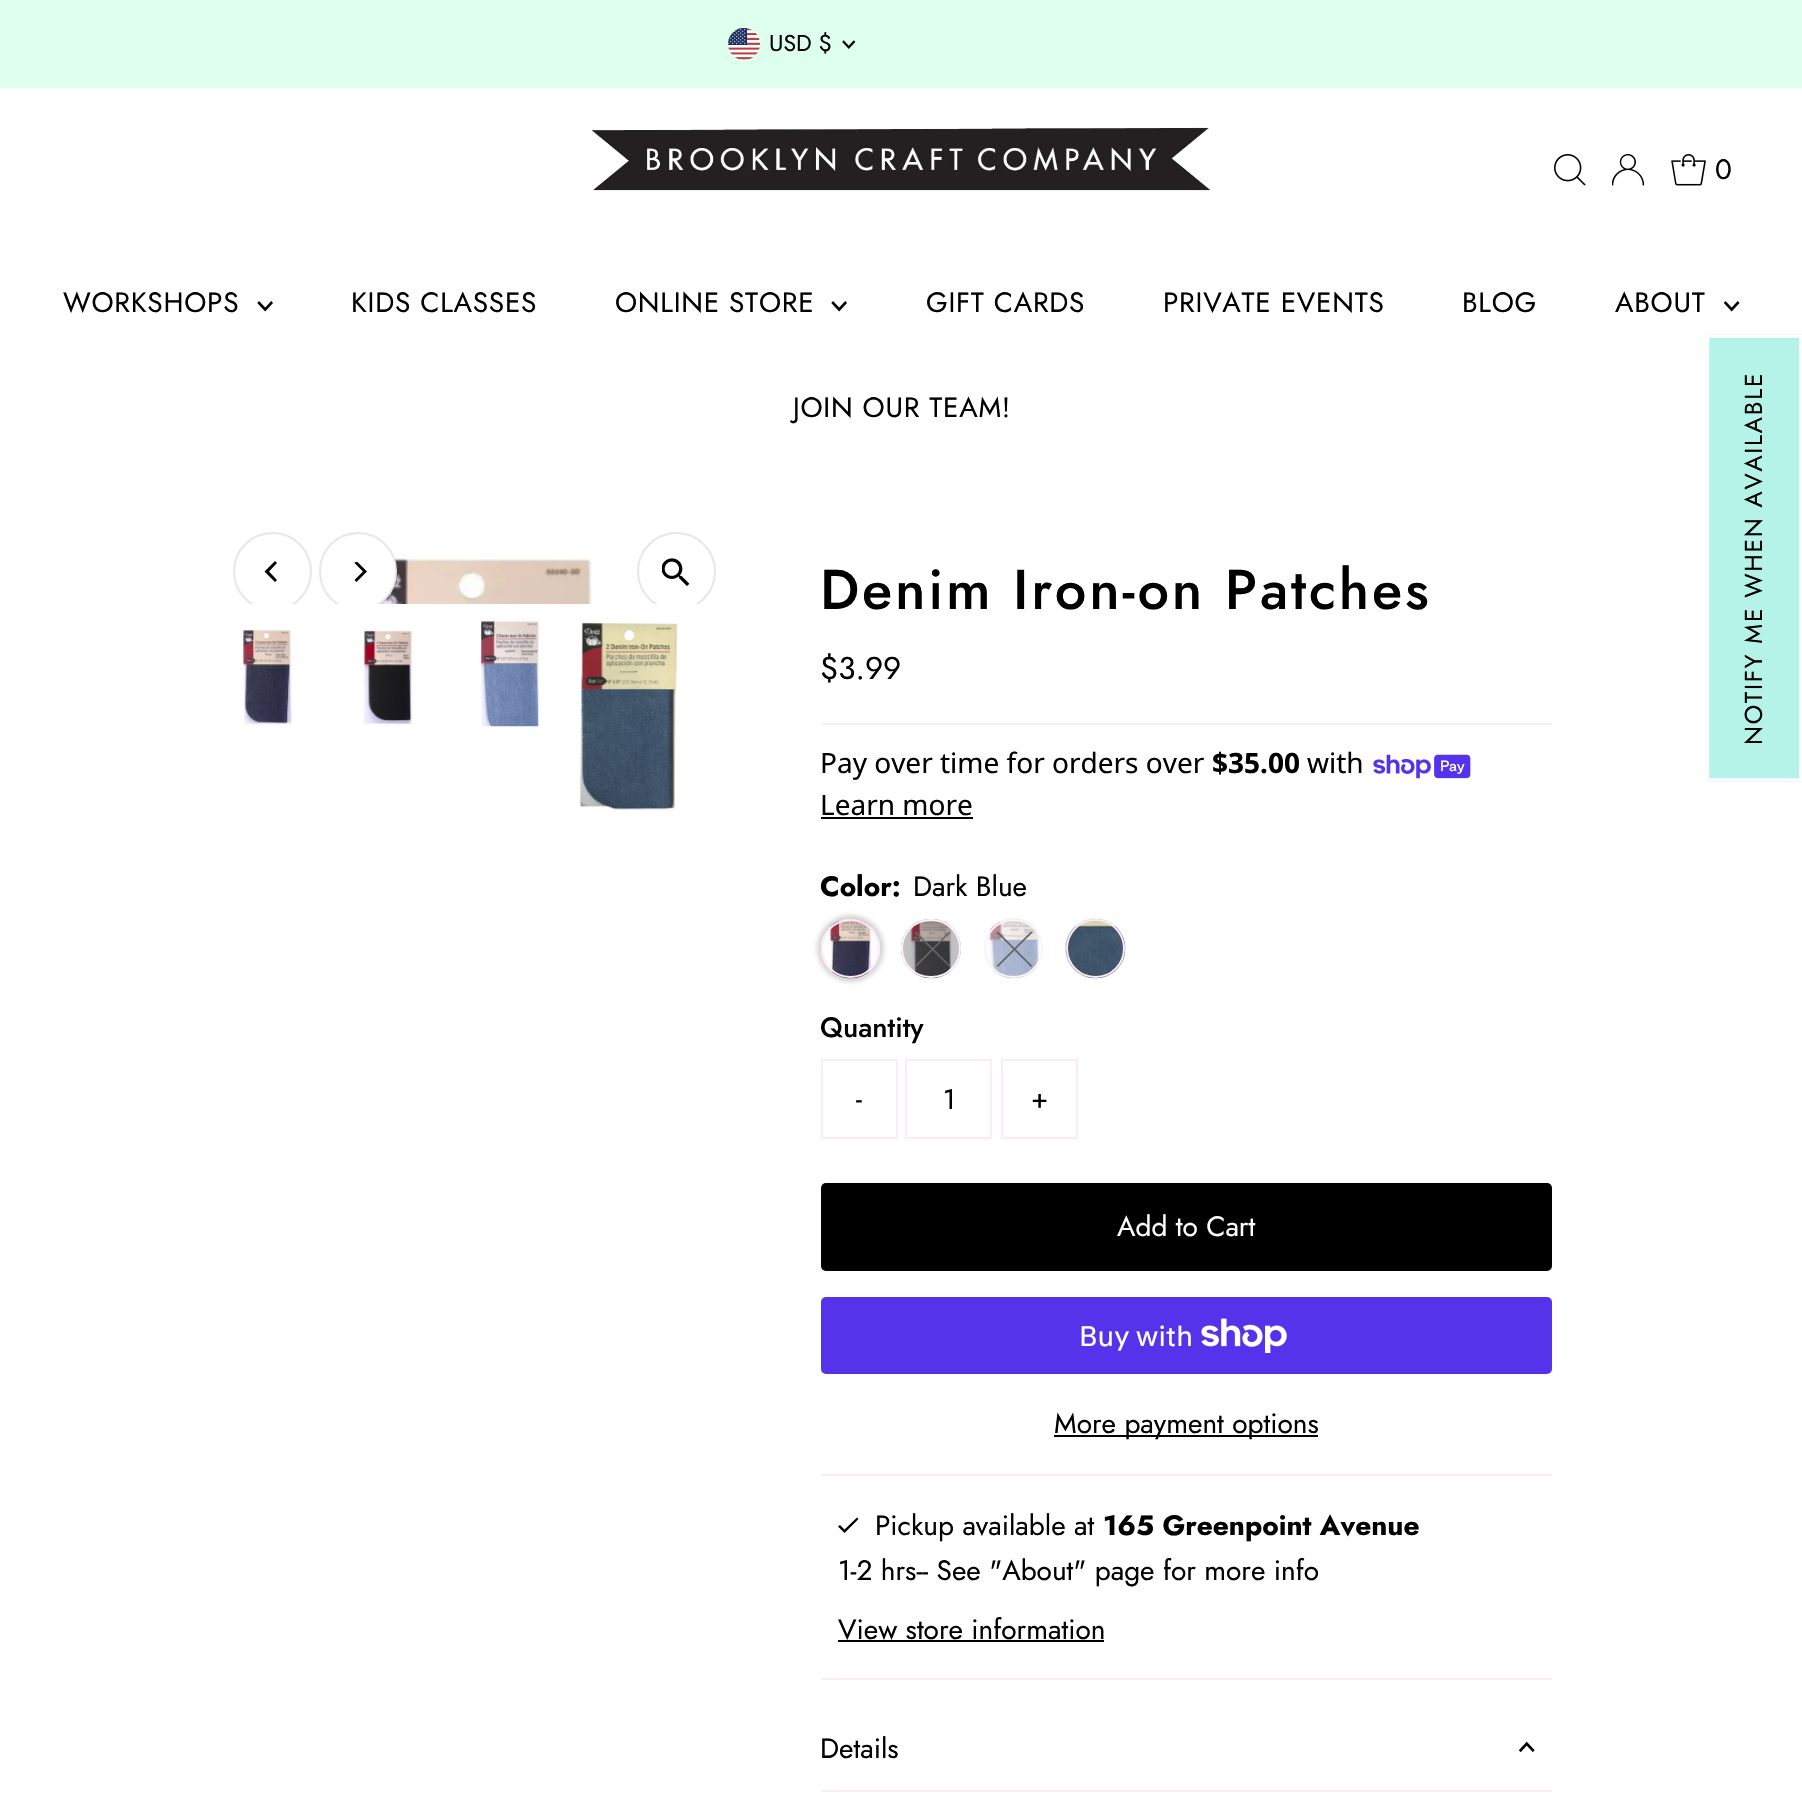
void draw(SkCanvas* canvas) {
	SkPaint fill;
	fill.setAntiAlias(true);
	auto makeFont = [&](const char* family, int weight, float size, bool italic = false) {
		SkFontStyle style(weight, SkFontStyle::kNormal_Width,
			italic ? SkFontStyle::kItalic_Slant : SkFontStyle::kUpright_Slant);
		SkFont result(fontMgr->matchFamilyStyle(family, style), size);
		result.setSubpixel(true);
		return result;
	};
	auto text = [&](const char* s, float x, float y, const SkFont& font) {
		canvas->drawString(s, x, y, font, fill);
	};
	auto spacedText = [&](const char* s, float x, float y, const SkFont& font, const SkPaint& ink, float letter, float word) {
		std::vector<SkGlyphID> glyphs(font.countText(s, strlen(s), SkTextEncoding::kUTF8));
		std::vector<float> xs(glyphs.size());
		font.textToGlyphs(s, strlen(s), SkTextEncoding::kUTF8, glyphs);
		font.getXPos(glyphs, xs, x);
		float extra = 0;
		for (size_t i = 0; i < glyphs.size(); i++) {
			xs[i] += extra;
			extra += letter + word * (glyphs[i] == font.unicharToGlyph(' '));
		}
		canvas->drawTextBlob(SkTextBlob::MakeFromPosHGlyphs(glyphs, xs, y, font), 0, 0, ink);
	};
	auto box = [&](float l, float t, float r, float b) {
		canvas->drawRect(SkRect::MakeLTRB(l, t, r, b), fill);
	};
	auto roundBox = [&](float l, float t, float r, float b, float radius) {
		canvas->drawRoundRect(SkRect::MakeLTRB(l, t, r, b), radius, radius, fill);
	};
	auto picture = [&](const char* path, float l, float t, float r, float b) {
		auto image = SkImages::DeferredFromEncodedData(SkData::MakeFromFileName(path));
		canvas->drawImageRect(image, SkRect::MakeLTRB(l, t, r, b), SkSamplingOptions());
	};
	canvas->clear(0xFFFFFFFF);
	fill.setColor(0xFFDEFFED);
	box(0, 0, 1802, 88);
	picture("image0.png", 728, 28, 760, 60);
	picture("image1.png", 842, 40, 856, 49);
	picture("image2.png", 592, 127, 1211, 191);
	picture("image3.png", 1554, 154, 1586, 186);
	picture("image4.png", 1612, 154, 1645, 186);
	picture("image5.png", 1671, 154, 1706, 186);
	picture("image6.png", 257, 301, 273, 312);
	picture("image6.png", 831, 301, 847, 312);
	picture("image7.png", 1724, 301, 1740, 312);
	canvas->save();
	canvas->clipRect(SkRect::MakeLTRB(215, 515, 733, 604));
	fill.setStyle(SkPaint::kStroke_Style);
	fill.setStrokeWidth(2);
	fill.setColor(0xFFE7E7E7);
	canvas->drawCircle(272.5f, 571.5f, 38.5f, fill);
	canvas->restore();
	fill.setStyle(SkPaint::kFill_Style);
	fill.setColor(0xFF000000);
	canvas->drawPath(SkPathBuilder().moveTo(264.5f, 571.5f).lineTo(275, 582).lineTo(277, 580).lineTo(269, 571.5f).lineTo(277, 563).lineTo(275, 561).close().detach(), fill);
	picture("image8.png", 380, 555, 593, 604);
	canvas->save();
	canvas->clipRect(SkRect::MakeLTRB(215, 515, 733, 604));
	fill.setColor(0xFFFFFFFF);
	canvas->drawRoundRect(SkRect::MakeLTRB(320, 533, 396, 610), 38, 38, fill);
	fill.setStyle(SkPaint::kStroke_Style);
	fill.setColor(0xFFE7E7E7);
	canvas->drawRoundRect(SkRect::MakeLTRB(320, 533, 396, 610), 38, 38, fill);
	canvas->restore();
	canvas->save();
	canvas->clipRect(SkRect::MakeLTRB(348, 562, 369, 583));
	fill.setStyle(SkPaint::kFill_Style);
	fill.setColor(0xFF000000);
	canvas->drawPath(SkPathBuilder().moveTo(367, 571.5f).lineTo(356.5f, 561).lineTo(354.5f, 563).lineTo(363, 571.5f).lineTo(354.5f, 580).lineTo(356.5f, 582).close().detach(), fill);
	canvas->restore();
	canvas->save();
	canvas->clipRect(SkRect::MakeLTRB(215, 515, 733, 604));
	fill.setStyle(SkPaint::kStroke_Style);
	fill.setColor(0xFFE7E7E7);
	canvas->drawCircle(676.5f, 571.5f, 38.5f, fill);
	canvas->restore();
	picture("image9.png", 662, 558, 690, 586);
	picture("image10.png", 241, 629, 292, 726);
	picture("image11.png", 362, 630, 414, 725);
	picture("image12.png", 479, 621, 539, 727);
	picture("image13.png", 579, 622, 678, 810);
	fill.setStyle(SkPaint::kFill_Style);
	fill.setColor(0xFFFFE9F4);
	box(821, 723, 1552, 725);
	picture("image14.png", 1373, 754, 1471, 779);
	fill.setColor(0xFF000000);
	box(821, 817, 973, 819);
	fill.setColor(0xFFD6D6D6);
	fill.setMaskFilter(SkMaskFilter::MakeBlur(kNormal_SkBlurStyle, 2));
	canvas->drawRoundRect(SkRect::MakeLTRB(817, 915, 884, 982), 33.5f, 33.5f, fill);
	fill.setMaskFilter(nullptr);
	picture("image15.png", 821, 918, 880, 979);
	fill.setStyle(SkPaint::kStroke_Style);
	fill.setColor(0xFFFFE9F4);
	canvas->drawCircle(850.5f, 948.5f, 28.5f, fill);
	fill.setStyle(SkPaint::kFill_Style);
	fill.setColor(0xFF666666);
	roundBox(901, 919, 961, 978, 29.5f);
	picture("image16.png", 901, 918, 961, 979);
	fill.setStyle(SkPaint::kStroke_Style);
	fill.setColor(0xFFFFF2F8);
	canvas->drawRoundRect(SkRect::MakeLTRB(902, 920, 960, 977), 28.5f, 28.5f, fill);
	fill.setStyle(SkPaint::kFill_Style);
	fill.setColor(0xFF666666);
	canvas->drawPath(SkPathBuilder().moveTo(949.5f, 931.5f).lineTo(950.5f, 932.5f).lineTo(916, 967).lineTo(914.5f, 966).close().detach(), fill);
	canvas->drawPath(SkPathBuilder().moveTo(950.5f, 966).lineTo(949.5f, 967).lineTo(914.5f, 932.5f).lineTo(916, 931.5f).close().detach(), fill);
	picture("image17.png", 989, 918, 1040, 979);
	fill.setStyle(SkPaint::kStroke_Style);
	fill.setColor(0xFFFFF2F8);
	canvas->drawCircle(1013.5f, 948.5f, 28.5f, fill);
	fill.setStyle(SkPaint::kFill_Style);
	fill.setColor(0xFF666666);
	canvas->drawPath(SkPathBuilder().moveTo(1031, 931.5f).lineTo(1032.5f, 932.5f).lineTo(998, 967).lineTo(996.5f, 966).close().detach(), fill);
	canvas->drawPath(SkPathBuilder().moveTo(1032.5f, 966).lineTo(1031, 967).lineTo(996.5f, 932.5f).lineTo(998, 931.5f).close().detach(), fill);
	picture("image18.png", 1065, 918, 1126, 979);
	fill.setStyle(SkPaint::kStroke_Style);
	fill.setColor(0xFFFFE9F4);
	canvas->drawCircle(1095.5f, 948.5f, 28.5f, fill);
	canvas->drawRect(SkRect::MakeLTRB(822, 1060, 897, 1138), fill);
	canvas->drawRect(SkRect::MakeLTRB(906, 1060, 991, 1138), fill);
	canvas->drawRect(SkRect::MakeLTRB(1002, 1060, 1077, 1138), fill);
	fill.setStyle(SkPaint::kFill_Style);
	fill.setColor(0xFF000000);
	roundBox(821, 1183, 1552, 1271, 5);
	fill.setColor(0xFF5433EB);
	roundBox(821, 1297, 1552, 1374, 5);
	picture("image19.png", 1201, 1318, 1287, 1353);
	fill.setColor(0xFF000000);
	box(1054, 1435, 1318, 1437);
	fill.setColor(0xFFFFE9F4);
	box(821, 1474, 1552, 1476);
	box(821, 1678, 1552, 1680);
	fill.setColor(0xFF000000);
	canvas->drawPath(SkPathBuilder().moveTo(844.5f, 1529.5f).lineTo(840, 1525).lineTo(838, 1526.5f).lineTo(844.5f, 1533).lineTo(858.5f, 1519).lineTo(857, 1517.5f).close().detach(), fill);
	box(838, 1640, 1104, 1642);
	fill.setColor(0xFFFFE9F4);
	box(821, 1790, 1552, 1792);
	picture("image20.png", 1519, 1741, 1535, 1752);
	fill.setColor(0xFFB5F2E7);
	box(1706, 334, 1802, 782);
	fill.setStyle(SkPaint::kStroke_Style);
	fill.setStrokeWidth(3.5f);
	fill.setColor(0xFFFFFFFF);
	canvas->drawPath(SkPathBuilder().moveTo(1707.5f, 780).lineTo(1707.5f, 336).lineTo(1801, 336).lineTo(1801, 780).close().detach(), fill);
	auto font1 = makeFont("Jost", 400, 23);
	fill.setStyle(SkPaint::kFill_Style);
	fill.setColor(0xFF000000);
	text("USD $", 769, 51, font1);
	auto font2 = makeFont("Jost", 400, 28);
	text("0", 1715, 179, font2);
	spacedText("WORKSHOPS", 63, 312, font2, fill, 0.75f, 0);
	spacedText("KIDS CLASSES", 351, 312, font2, fill, 0.75f, 0);
	spacedText("ONLINE STORE", 615, 312, font2, fill, 0.75f, 0);
	spacedText("GIFT CARDS", 926, 312, font2, fill, 0.75f, 0);
	spacedText("PRIVATE EVENTS", 1163, 312, font2, fill, 0.75f, 0);
	spacedText("BLOG", 1462, 312, font2, fill, 0.75f, 0);
	spacedText("ABOUT", 1615, 312, font2, fill, 0.75f, 0);
	spacedText("JOIN OUR TEAM!", 793, 417, font2, fill, 0.75f, 0);
	auto font3 = makeFont("Jost", 500, 56);
	spacedText("Denim Iron-on Patches", 820, 609, font3, fill, 2.8f, 0);
	auto font4 = makeFont("Jost", 400, 31.5f);
	text("$3.99", 820, 679, font4);
	auto font5 = makeFont("Noto Sans", 400, 28);
	text("Pay over time for orders over", 820, 773, font5);
	auto font6 = makeFont("Noto Sans", 700, 28);
	text("$35.00", 1212, 773, font6);
	text("with", 1307, 773, font5);
	text("Learn more", 820, 815, font5);
	auto font7 = makeFont("Jost", 700, 28);
	text("Color:", 820, 896, font7);
	text("Dark Blue", 913, 896, font2);
	auto font8 = makeFont("Jost", 500, 28);
	text("Quantity", 820, 1037, font8);
	text("-", 856, 1108, font2);
	text("1", 943, 1109, font2);
	text("+", 1031, 1108, font2);
	fill.setColor(0xFFFFFFFF);
	text("Add to Cart", 1117, 1236, font2);
	auto font9 = makeFont("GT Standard", 400, 28);
	text("Buy with", 1079, 1346, font9);
	fill.setColor(0xFF000000);
	text("More payment options", 1054, 1433, font2);
	text("Pickup available at", 875, 1535, font2);
	text("165 Greenpoint Avenue", 1103, 1535, font7);
	text("1-2 hrs-- See \"About\" page for more info", 838, 1580, font2);
	text("View store information", 838, 1639, font2);
	text("Details", 820, 1758, font2);
	auto font10 = makeFont("Jost", 400, 24.5f);
	canvas->save();
	canvas->rotate(-90, 1762, 745);
	spacedText("NOTIFY ME WHEN AVAILABLE", 1762, 745, font10, fill, 1.75f, 0);
	canvas->restore();
}
